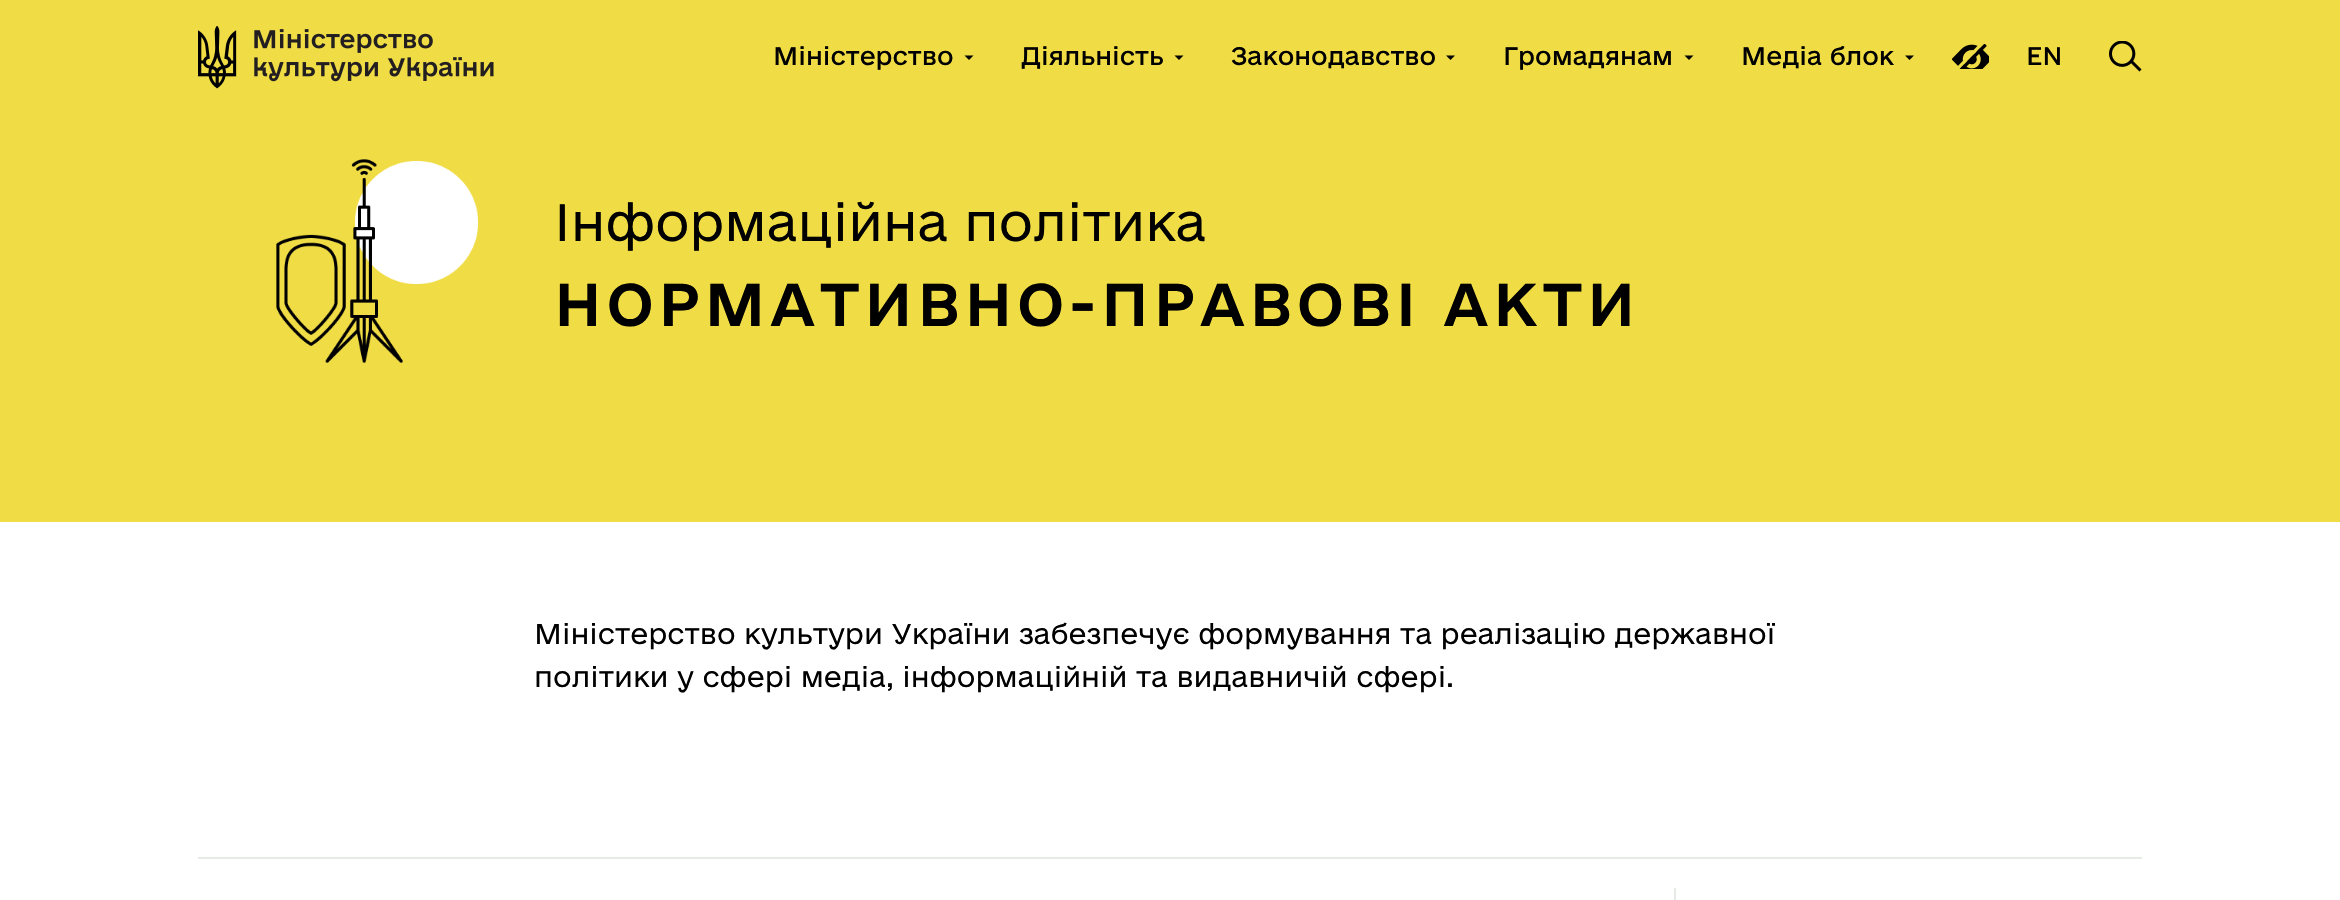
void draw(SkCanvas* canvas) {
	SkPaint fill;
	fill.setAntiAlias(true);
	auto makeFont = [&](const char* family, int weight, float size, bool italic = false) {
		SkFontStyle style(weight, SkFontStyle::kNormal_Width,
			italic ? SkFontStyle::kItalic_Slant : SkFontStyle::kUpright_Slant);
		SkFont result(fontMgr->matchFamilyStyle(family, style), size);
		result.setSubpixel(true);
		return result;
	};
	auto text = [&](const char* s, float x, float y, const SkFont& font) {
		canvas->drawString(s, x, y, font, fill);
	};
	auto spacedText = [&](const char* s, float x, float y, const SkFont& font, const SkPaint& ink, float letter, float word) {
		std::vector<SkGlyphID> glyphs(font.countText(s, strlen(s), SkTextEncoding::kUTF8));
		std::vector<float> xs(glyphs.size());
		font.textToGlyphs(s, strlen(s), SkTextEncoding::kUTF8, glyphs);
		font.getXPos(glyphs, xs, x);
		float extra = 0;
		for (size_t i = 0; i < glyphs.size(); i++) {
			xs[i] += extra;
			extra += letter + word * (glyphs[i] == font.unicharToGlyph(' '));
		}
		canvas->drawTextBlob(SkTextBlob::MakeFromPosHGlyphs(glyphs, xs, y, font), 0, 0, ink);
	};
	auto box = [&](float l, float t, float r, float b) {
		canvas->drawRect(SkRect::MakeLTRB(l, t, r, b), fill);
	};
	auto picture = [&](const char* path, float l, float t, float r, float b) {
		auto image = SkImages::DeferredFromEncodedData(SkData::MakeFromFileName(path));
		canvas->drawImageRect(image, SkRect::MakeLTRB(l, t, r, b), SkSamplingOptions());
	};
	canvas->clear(0xFFFFFFFF);
	fill.setColor(0xFFF0DC45);
	box(0, 0, 2340, 522);
	picture("image0.png", 198, 26, 494, 89);
	fill.setColor(0xFF000000);
	canvas->drawPath(SkPathBuilder().moveTo(964.5f, 55.5f).lineTo(973.5f, 55.5f).lineTo(969, 60).close().detach(), fill);
	canvas->drawPath(SkPathBuilder().moveTo(1174.5f, 55.5f).lineTo(1183.5f, 55.5f).lineTo(1179, 60).close().detach(), fill);
	canvas->drawPath(SkPathBuilder().moveTo(1446, 55.5f).lineTo(1455, 55.5f).lineTo(1450.5f, 60).close().detach(), fill);
	canvas->drawPath(SkPathBuilder().moveTo(1684.5f, 55.5f).lineTo(1693.5f, 55.5f).lineTo(1689, 60).close().detach(), fill);
	canvas->drawPath(SkPathBuilder().moveTo(1905, 55.5f).lineTo(1914, 55.5f).lineTo(1909.5f, 60).close().detach(), fill);
	picture("image1.png", 1952, 44, 1989, 69);
	picture("image2.png", 2109, 41, 2142, 72);
	picture("image3.png", 276, 159, 478, 363);
	fill.setColor(0xFFE6EBE6);
	box(198, 857, 2142, 859);
	box(1674, 888, 1676, 900);
	auto font1 = makeFont("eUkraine", 400, 24);
	fill.setColor(0xFF000000);
	text("Міністерство", 773, 65, font1);
	text("Діяльність", 1021, 65, font1);
	text("Законодавство", 1231, 65, font1);
	text("Громадянам", 1503, 65, font1);
	text("Медіа блок", 1741, 65, font1);
	text("EN", 2026, 65, font1);
	auto font2 = makeFont("eUkraine", 300, 49.5f);
	text("Інформаційна політика", 554, 241, font2);
	auto font3 = makeFont("eUkraine", 500, 57);
	spacedText("НОРМАТИВНО-ПРАВОВІ АКТИ", 554, 326, font3, fill, 4.6f, 0);
	auto font4 = makeFont("eUkraine", 300, 27);
	text("Міністерство культури України забезпечує формування та реалізацію державної", 534, 644, font4);
	text("політики у сфері медіа, інформаційній та видавничій сфері.", 534, 687, font4);
}
